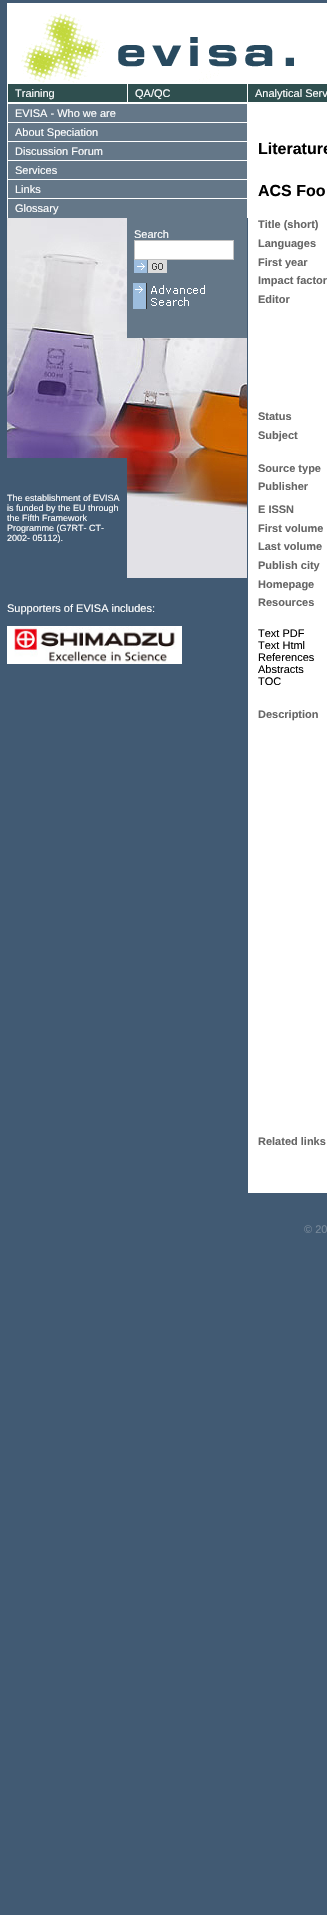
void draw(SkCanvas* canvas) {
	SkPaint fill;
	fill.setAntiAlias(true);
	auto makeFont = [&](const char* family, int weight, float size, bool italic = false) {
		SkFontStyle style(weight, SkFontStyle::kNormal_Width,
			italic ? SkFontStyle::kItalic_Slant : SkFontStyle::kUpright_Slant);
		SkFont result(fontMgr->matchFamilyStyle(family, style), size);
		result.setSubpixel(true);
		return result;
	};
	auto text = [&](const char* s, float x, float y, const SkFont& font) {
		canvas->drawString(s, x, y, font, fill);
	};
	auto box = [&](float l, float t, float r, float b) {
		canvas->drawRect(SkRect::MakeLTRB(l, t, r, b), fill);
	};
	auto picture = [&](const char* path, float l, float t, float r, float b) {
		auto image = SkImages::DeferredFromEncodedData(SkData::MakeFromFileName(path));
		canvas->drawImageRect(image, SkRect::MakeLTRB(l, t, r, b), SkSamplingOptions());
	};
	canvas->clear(0xFF415A73);
	fill.setColor(0xFFFFFFFF);
	box(7, 3, 327, 83);
	picture("image0.png", 21, 13, 294, 83);
	box(7, 83, 327, 103);
	fill.setColor(0xFF2F4F4F);
	box(8, 84, 127, 102);
	box(128, 84, 247, 102);
	box(248, 84, 327, 102);
	fill.setColor(0xFFFFFFFF);
	box(7, 103, 248, 218);
	fill.setColor(0xFF647788);
	box(8, 104, 247, 122);
	box(8, 123, 247, 141);
	box(8, 142, 247, 160);
	box(8, 161, 247, 179);
	box(8, 180, 247, 198);
	box(8, 199, 247, 218);
	picture("image1.png", 7, 218, 127, 338);
	box(127, 218, 247, 338);
	fill.setColor(0xFFFFFFFF);
	canvas->drawRect(SkRect::MakeLTRB(134.5f, 240.5f, 233.5f, 259.5f), fill);
	fill.setStyle(SkPaint::kStroke_Style);
	fill.setStrokeWidth(1);
	fill.setColor(0xFFC2C2C2);
	canvas->drawRect(SkRect::MakeLTRB(134.5f, 240.5f, 233.5f, 259.5f), fill);
	picture("image2.png", 134, 260, 167, 273);
	picture("image3.png", 133, 283, 205, 309);
	picture("image4.png", 7, 338, 127, 458);
	picture("image5.png", 127, 338, 247, 458);
	picture("image6.png", 127, 458, 247, 578);
	picture("image7.png", 7, 626, 182, 664);
	fill.setStyle(SkPaint::kFill_Style);
	fill.setColor(0xFFFFFFFF);
	box(248, 103, 327, 1193);
	auto font1 = makeFont("Liberation Sans", 400, 11);
	text("Training", 15, 97, font1);
	text("QA/QC", 135, 97, font1);
	text("Analytical Serv", 255, 97, font1);
	text("EVISA - Who we are", 15, 117, font1);
	text("About Speciation", 15, 136, font1);
	text("Discussion Forum", 15, 155, font1);
	text("Services", 15, 174, font1);
	text("Links", 15, 193, font1);
	text("Glossary", 15, 212, font1);
	text("Search", 134, 238, font1);
	auto font2 = makeFont("Liberation Sans", 400, 9);
	text("The establishment of EVISA", 7, 501, font2);
	text("is funded by the EU through", 7, 511, font2);
	text("the Fifth Framework", 7, 521, font2);
	text("Programme (G7RT- CT-", 7, 531, font2);
	text("2002- 05112).", 7, 541, font2);
	text("Supporters of EVISA includes:", 7, 612, font1);
	auto font3 = makeFont("Liberation Sans", 700, 16);
	fill.setColor(0xFF000000);
	text("Literature", 258, 154, font3);
	text("ACS Foo", 258, 196, font3);
	auto font4 = makeFont("Liberation Sans", 700, 11);
	fill.setColor(0xFF666666);
	text("Title (short)", 258, 228, font4);
	text("Languages", 258, 247, font4);
	text("First year", 258, 266, font4);
	text("Impact factor", 258, 284, font4);
	text("Editor", 258, 303, font4);
	text("Status", 258, 420, font4);
	text("Subject", 258, 439, font4);
	text("Source type", 258, 472, font4);
	fill.setColor(0xFFFFFFFF);
	box(302, 474, 305, 475);
	fill.setColor(0xFF666666);
	text("Publisher", 258, 490, font4);
	text("E ISSN", 258, 513, font4);
	text("First volume", 258, 532, font4);
	text("Last volume", 258, 550, font4);
	text("Publish city", 258, 569, font4);
	text("Homepage", 258, 588, font4);
	text("Resources", 258, 606, font4);
	fill.setColor(0xFF000000);
	text("Text PDF", 258, 637, font1);
	text("Text Html", 258, 649, font1);
	text("References", 258, 661, font1);
	text("Abstracts", 258, 673, font1);
	text("TOC", 258, 685, font1);
	fill.setColor(0xFF666666);
	text("Description", 258, 718, font4);
	text("Related links", 258, 1145, font4);
	fill.setColor(0xFF778899);
	text("© 20", 304, 1233, font1);
}
